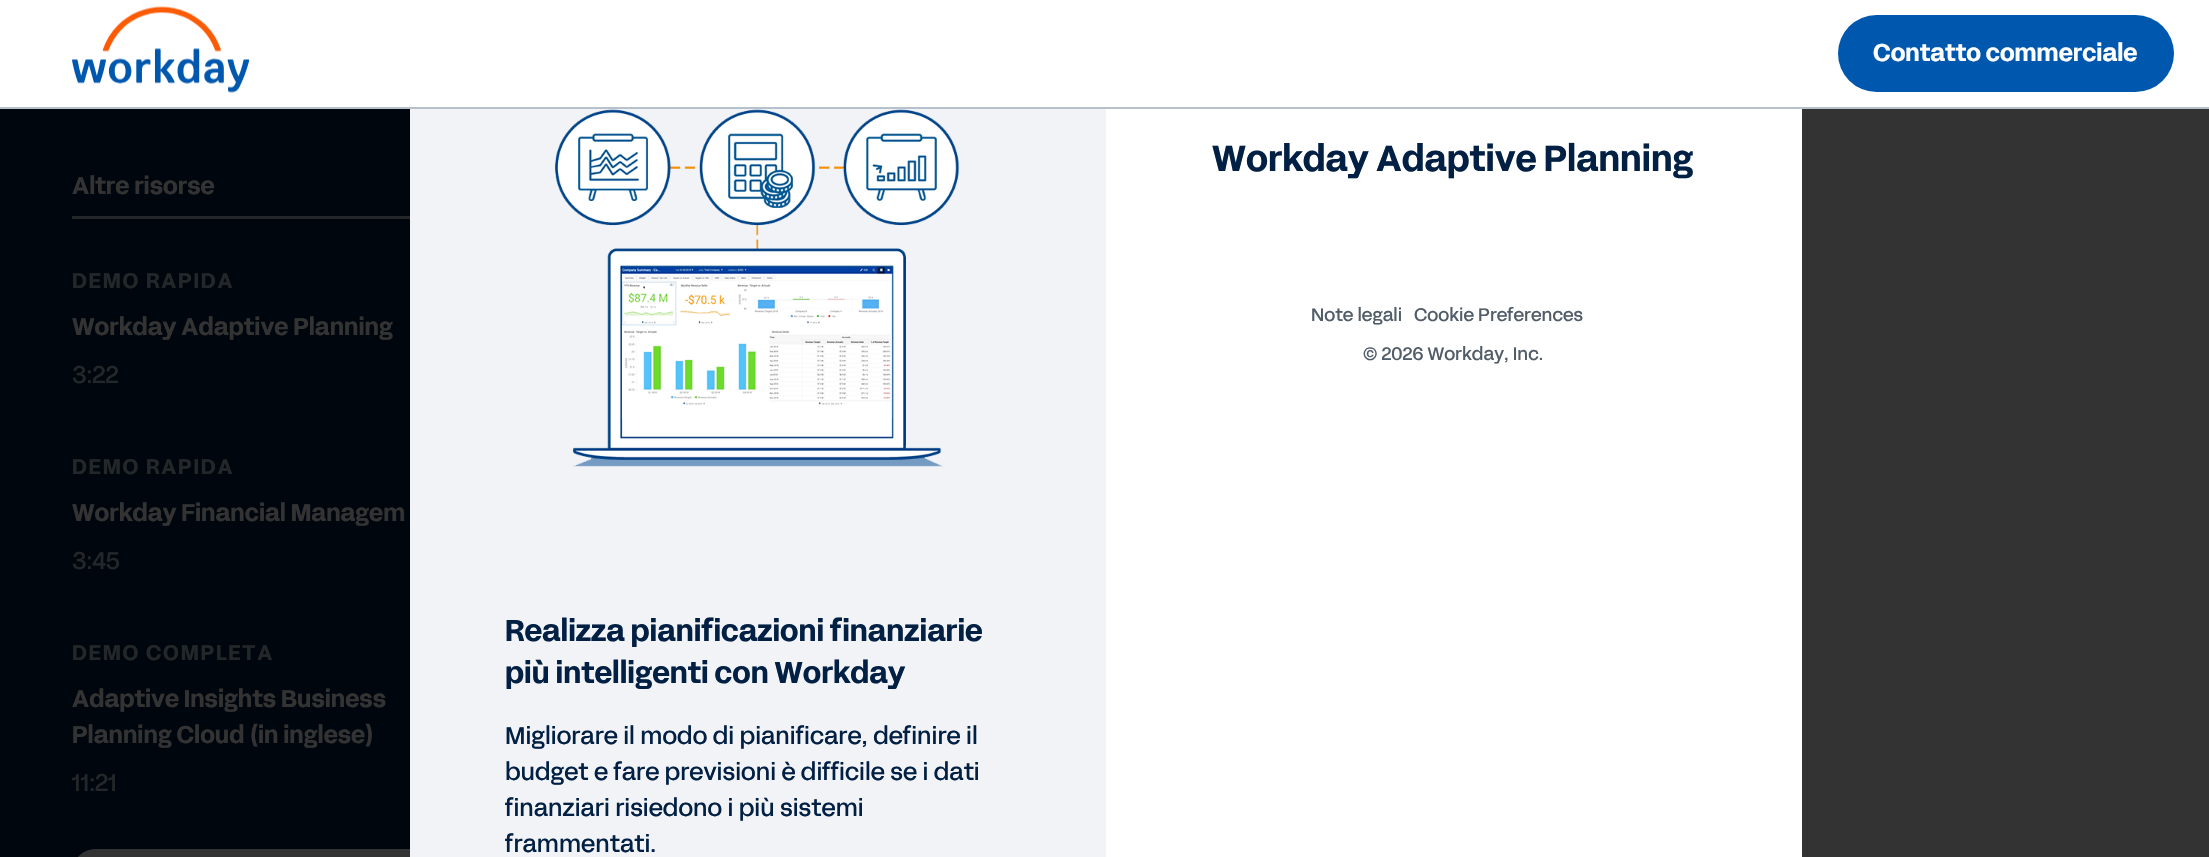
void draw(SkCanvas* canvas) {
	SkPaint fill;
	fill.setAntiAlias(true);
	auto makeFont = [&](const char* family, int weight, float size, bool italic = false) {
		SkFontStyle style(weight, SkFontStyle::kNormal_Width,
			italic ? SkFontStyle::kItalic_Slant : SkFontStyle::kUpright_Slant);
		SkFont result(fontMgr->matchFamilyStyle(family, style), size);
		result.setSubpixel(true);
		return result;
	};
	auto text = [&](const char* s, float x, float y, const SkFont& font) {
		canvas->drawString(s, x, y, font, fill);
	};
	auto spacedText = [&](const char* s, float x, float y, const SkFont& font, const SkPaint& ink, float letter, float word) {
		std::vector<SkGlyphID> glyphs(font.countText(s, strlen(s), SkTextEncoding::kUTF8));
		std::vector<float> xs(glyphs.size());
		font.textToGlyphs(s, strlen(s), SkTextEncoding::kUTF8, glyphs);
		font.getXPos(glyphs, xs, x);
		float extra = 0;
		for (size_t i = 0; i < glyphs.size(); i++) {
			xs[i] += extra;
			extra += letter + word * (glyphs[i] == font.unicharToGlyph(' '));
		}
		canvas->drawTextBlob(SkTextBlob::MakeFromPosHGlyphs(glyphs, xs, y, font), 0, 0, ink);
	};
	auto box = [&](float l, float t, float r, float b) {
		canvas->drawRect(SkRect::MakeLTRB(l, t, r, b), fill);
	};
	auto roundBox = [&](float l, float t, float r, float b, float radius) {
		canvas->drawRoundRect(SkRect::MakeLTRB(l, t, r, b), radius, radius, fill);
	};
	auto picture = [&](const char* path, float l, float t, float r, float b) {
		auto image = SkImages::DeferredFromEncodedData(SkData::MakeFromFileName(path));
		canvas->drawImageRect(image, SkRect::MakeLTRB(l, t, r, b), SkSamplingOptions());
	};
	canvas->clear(0xFF333333);
	fill.setColor(0xFFFFFFFF);
	box(0, 0, 2209, 107);
	fill.setColor(0xFFB6C1CC);
	box(0, 107, 2209, 109);
	picture("image0.png", 72, 6, 250, 93);
	fill.setColor(0xFF0057AE);
	roundBox(1838, 15, 2174, 92, 38.5f);
	fill.setColor(0xFF00060D);
	box(0, 109, 410, 857);
	fill.setColor(0xFF242729);
	box(72, 216, 410, 219);
	fill.setColor(0xFF333333);
	roundBox(72, 849, 468, 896, 38.5f);
	fill.setColor(0xFFFFFFFF);
	box(1106, 109, 1802, 857);
	fill.setColor(0xFFF1F3F6);
	box(410, 109, 1106, 857);
	picture("image1.png", 555, 109, 960, 467);
	auto font1 = makeFont("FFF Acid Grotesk", 700, 24);
	fill.setColor(0xFFFFFFFF);
	text("Contatto commerciale", 1873, 61, font1);
	fill.setColor(0xFF333333);
	text("Altre risorse", 72, 194, font1);
	auto font2 = makeFont("FFF Acid Grotesk", 700, 21);
	fill.setColor(0xFF242729);
	spacedText("DEMO RAPIDA", 72, 288, font2, fill, 1.75f, 0);
	fill.setColor(0xFF333333);
	text("Workday Adaptive Planning", 72, 335, font1);
	auto font3 = makeFont("FFF Acid Grotesk", 400, 24);
	fill.setColor(0xFF242729);
	text("3:22", 72, 383, font3);
	spacedText("DEMO RAPIDA", 72, 474, font2, fill, 1.75f, 0);
	fill.setColor(0xFF333333);
	text("Workday Financial Managem", 72, 521, font1);
	fill.setColor(0xFF242729);
	text("3:45", 72, 569, font3);
	spacedText("DEMO COMPLETA", 72, 660, font2, fill, 1.75f, 0);
	fill.setColor(0xFF333333);
	text("Adaptive Insights Business", 72, 707, font1);
	text("Planning Cloud (in inglese)", 72, 743, font1);
	fill.setColor(0xFF242729);
	text("11:21", 72, 791, font3);
	auto font4 = makeFont("FFF Acid Grotesk", 700, 36);
	fill.setColor(0xFF022043);
	text("Workday Adaptive Planning", 1212, 171, font4);
	auto font5 = makeFont("FFF Acid Grotesk", 400, 18);
	fill.setColor(0xFF525D6A);
	text("Note legali", 1311, 321, font5);
	text("Cookie Preferences", 1414, 321, font5);
	text("© 2026 Workday, Inc.", 1363, 360, font5);
	auto font6 = makeFont("FFF Acid Grotesk", 700, 30);
	fill.setColor(0xFF022043);
	text("Realizza pianificazioni finanziarie", 505, 641, font6);
	text("più intelligenti con Workday", 505, 683, font6);
	text("Migliorare il modo di pianificare, definire il", 505, 744, font3);
	text("budget e fare previsioni è difficile se i dati", 505, 780, font3);
	text("finanziari risiedono i più sistemi", 505, 816, font3);
	text("frammentati.", 505, 852, font3);
}
